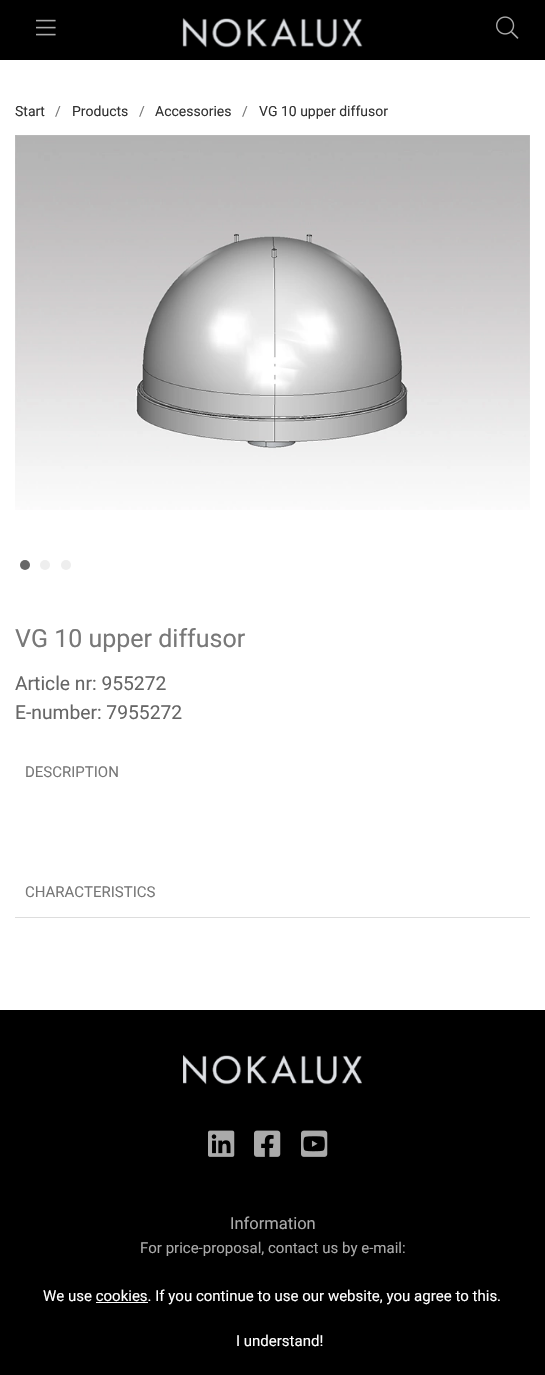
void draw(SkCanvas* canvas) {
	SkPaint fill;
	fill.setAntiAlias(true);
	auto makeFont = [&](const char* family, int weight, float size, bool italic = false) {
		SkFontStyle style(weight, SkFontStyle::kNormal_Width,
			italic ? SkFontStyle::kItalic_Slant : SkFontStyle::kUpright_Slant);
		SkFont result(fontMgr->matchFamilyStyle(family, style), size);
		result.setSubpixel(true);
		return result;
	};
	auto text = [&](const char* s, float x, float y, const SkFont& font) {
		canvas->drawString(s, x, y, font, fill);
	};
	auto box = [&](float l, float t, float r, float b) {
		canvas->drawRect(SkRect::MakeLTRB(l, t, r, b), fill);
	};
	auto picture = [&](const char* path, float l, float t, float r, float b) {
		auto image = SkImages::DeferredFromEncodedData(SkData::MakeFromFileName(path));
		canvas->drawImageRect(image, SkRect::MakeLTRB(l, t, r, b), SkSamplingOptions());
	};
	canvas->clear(0xFFFFFFFF);
	fill.setColor(0xFF000000);
	box(0, 0, 545, 60);
	picture("image0.png", 36, 19, 56, 36);
	picture("image1.png", 182, 18, 363, 48);
	picture("image2.png", 496, 16, 519, 39);
	picture("image3.png", 15, 135, 530, 510);
	fill.setColor(0xFF666666);
	canvas->drawCircle(25, 565, 5, fill);
	fill.setColor(0xFFEEEEEE);
	canvas->drawCircle(45, 565, 5, fill);
	canvas->drawCircle(66, 565, 5, fill);
	fill.setColor(0xFFDDDDDD);
	box(15, 917, 530, 918);
	fill.setColor(0xFF000000);
	box(0, 1010, 545, 1375);
	picture("image4.png", 183, 1055, 362, 1085);
	picture("image5.png", 208, 1130, 235, 1157);
	picture("image6.png", 254, 1130, 281, 1157);
	picture("image7.png", 301, 1130, 328, 1157);
	fill.setColor(0xFFFFFFFF);
	box(96, 1302, 148, 1303);
	auto font1 = makeFont("Roboto", 400, 14);
	fill.setColor(0xFF333333);
	text("Start", 15, 116, font1);
	fill.setColor(0xFF787878);
	text("/", 55, 116, font1);
	fill.setColor(0xFF333333);
	text("Products", 72, 116, font1);
	fill.setColor(0xFF787878);
	text("/", 139, 116, font1);
	fill.setColor(0xFF333333);
	text("Accessories", 155, 116, font1);
	fill.setColor(0xFF787878);
	text("/", 242, 116, font1);
	fill.setColor(0xFF333333);
	text("VG 10 upper diffusor", 259, 116, font1);
	auto font2 = makeFont("Roboto", 400, 25);
	fill.setColor(0xFF787878);
	text("VG 10 upper diffusor", 15, 647, font2);
	auto font3 = makeFont("Roboto", 400, 19.25f);
	fill.setColor(0xFF666666);
	text("Article nr: 955272", 15, 690, font3);
	text("E-number: 7955272", 15, 719, font3);
	auto font4 = makeFont("Roboto", 400, 15);
	fill.setColor(0xFF787878);
	text("DESCRIPTION", 25, 777, font4);
	text("CHARACTERISTICS", 25, 897, font4);
	auto font5 = makeFont("Roboto", 400, 16.5f);
	fill.setColor(0xFFAAAAAA);
	text("Information", 230, 1229, font5);
	text("For price-proposal, contact us by e-mail:", 140, 1253, font4);
	fill.setColor(0xFFFFFFFF);
	text("We use cookies. If you continue to use our website, you agree to this.", 43, 1301, font4);
	text("I understand!", 236, 1346, font4);
}
